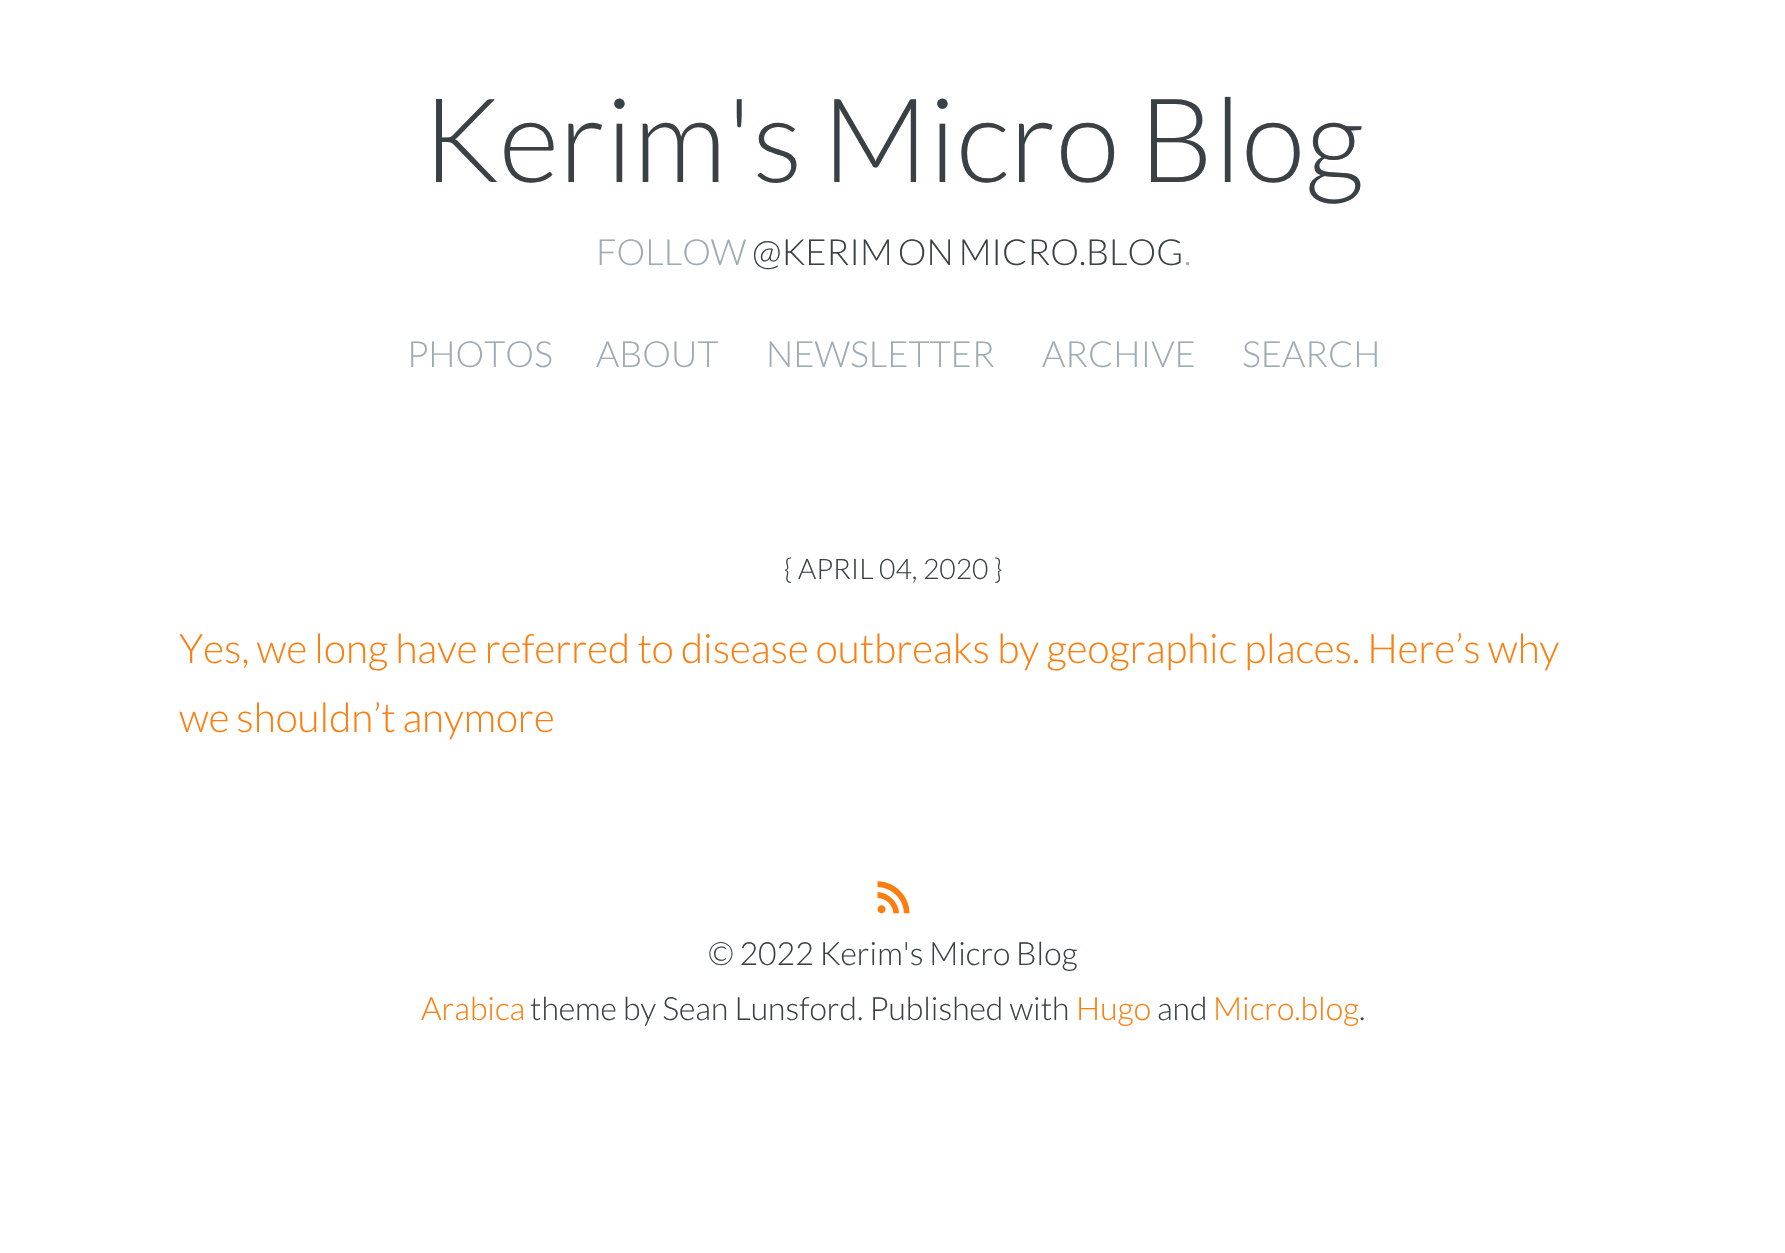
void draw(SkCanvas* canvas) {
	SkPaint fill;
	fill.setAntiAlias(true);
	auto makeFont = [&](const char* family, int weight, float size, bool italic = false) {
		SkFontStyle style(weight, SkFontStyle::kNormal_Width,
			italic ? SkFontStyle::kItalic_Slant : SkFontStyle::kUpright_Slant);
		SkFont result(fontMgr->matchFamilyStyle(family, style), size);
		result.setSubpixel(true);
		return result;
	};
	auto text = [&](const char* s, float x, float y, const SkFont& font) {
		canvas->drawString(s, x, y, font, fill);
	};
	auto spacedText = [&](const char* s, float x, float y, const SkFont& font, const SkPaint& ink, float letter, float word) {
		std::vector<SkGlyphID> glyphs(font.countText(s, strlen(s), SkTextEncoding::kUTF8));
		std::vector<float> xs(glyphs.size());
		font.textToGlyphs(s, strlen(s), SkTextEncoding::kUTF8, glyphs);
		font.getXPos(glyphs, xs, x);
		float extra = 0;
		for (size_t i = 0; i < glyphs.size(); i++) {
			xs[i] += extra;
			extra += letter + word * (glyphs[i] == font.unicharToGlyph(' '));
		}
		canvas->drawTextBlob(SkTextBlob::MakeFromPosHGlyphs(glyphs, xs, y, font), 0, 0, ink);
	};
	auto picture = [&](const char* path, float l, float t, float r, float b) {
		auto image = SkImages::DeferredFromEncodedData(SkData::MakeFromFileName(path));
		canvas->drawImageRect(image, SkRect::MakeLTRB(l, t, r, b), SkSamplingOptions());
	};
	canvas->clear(0xFFFFFFFF);
	picture("image0.png", 877, 881, 910, 914);
	auto font1 = makeFont("Lato", 300, 117);
	fill.setColor(0xFF3A4145);
	spacedText("Kerim's Micro Blog", 422, 182, font1, fill, 0, -3);
	auto font2 = makeFont("Lato", 300, 36);
	fill.setColor(0xFF9EABB3);
	text("FOLLOW", 596, 265, font2);
	fill.setColor(0xFF3A4145);
	spacedText("@KERIM ON MICRO.BLOG", 752, 265, font2, fill, 0, -2);
	fill.setColor(0xFF9EABB3);
	text(".", 1184, 265, font2);
	text("PHOTOS", 407, 367, font2);
	text("ABOUT", 596, 367, font2);
	text("NEWSLETTER", 766, 367, font2);
	text("ARCHIVE", 1042, 367, font2);
	text("SEARCH", 1242, 367, font2);
	auto font3 = makeFont("Lato", 300, 28.25f);
	fill.setColor(0xFF3A4145);
	text("{ APRIL 04, 2020 }", 784, 579, font3);
	auto font4 = makeFont("Lato", 300, 40.5f);
	fill.setColor(0xFFFC7E0F);
	spacedText("Yes, we long have referred to disease outbreaks by geographic places. Here’s why", 179, 663, font4, fill, 0, -0.6f);
	spacedText("we shouldn’t anymore", 179, 732, font4, fill, 0, -1);
	auto font5 = makeFont("Lato", 300, 32);
	fill.setColor(0xFF3A4145);
	spacedText("© 2022 Kerim's Micro Blog", 708, 965, font5, fill, 0, -0.5f);
	fill.setColor(0xFFFC7E0F);
	text("Arabica", 421, 1020, font5);
	fill.setColor(0xFF3A4145);
	text("theme by Sean Lunsford. Published with", 530, 1020, font5);
	fill.setColor(0xFFFC7E0F);
	text("Hugo", 1076, 1020, font5);
	fill.setColor(0xFF3A4145);
	text("and", 1157, 1020, font5);
	fill.setColor(0xFFFC7E0F);
	text("Micro.blog", 1213, 1020, font5);
	fill.setColor(0xFF3A4145);
	text(".", 1359, 1020, font5);
}
